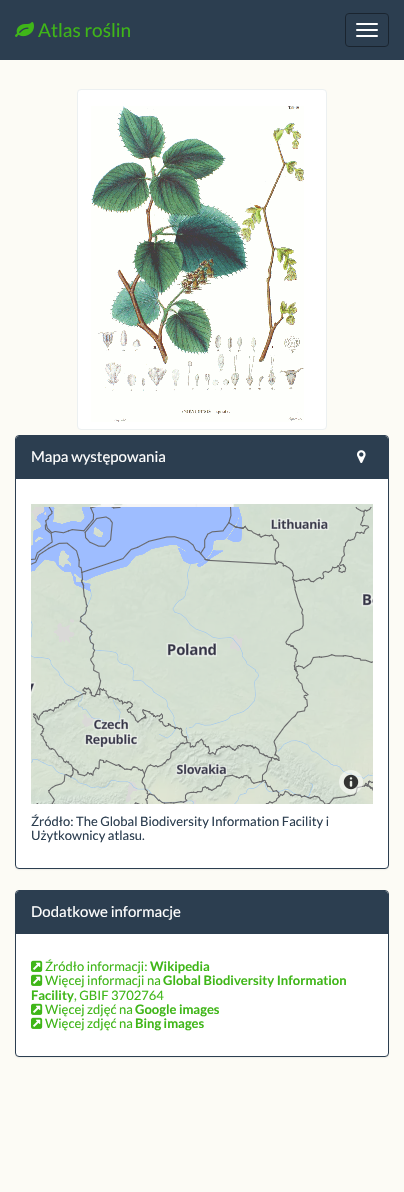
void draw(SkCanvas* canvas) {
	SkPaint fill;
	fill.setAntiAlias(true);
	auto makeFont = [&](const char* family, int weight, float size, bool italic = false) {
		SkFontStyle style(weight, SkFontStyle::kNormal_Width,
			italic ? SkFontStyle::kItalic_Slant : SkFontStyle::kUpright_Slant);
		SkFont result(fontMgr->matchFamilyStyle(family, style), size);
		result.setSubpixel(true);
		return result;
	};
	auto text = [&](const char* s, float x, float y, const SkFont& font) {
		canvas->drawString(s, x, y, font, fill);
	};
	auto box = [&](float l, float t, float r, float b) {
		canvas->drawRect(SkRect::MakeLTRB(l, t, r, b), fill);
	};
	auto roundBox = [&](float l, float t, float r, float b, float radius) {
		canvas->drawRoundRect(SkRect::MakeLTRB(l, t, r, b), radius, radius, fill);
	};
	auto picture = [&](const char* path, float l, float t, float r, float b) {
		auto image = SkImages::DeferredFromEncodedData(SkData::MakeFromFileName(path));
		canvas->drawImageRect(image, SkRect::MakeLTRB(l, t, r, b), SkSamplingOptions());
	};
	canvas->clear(0xFFFCFBF5);
	fill.setColor(0xFF2C3E50);
	box(0, 0, 404, 60);
	picture("image0.png", 15, 22, 34, 37);
	fill.setStyle(SkPaint::kStroke_Style);
	fill.setStrokeWidth(1);
	fill.setColor(0xFF1A242F);
	canvas->drawRoundRect(SkRect::MakeLTRB(345.5f, 13.5f, 388.5f, 46.5f), 3.5f, 3.5f, fill);
	fill.setStyle(SkPaint::kFill_Style);
	fill.setColor(0xFFFFFFFF);
	roundBox(356, 23, 378, 25, 1);
	roundBox(356, 29, 378, 31, 1);
	roundBox(356, 35, 378, 37, 1);
	canvas->drawRoundRect(SkRect::MakeLTRB(77.5f, 89.5f, 326.5f, 429.5f), 3.5f, 3.5f, fill);
	fill.setStyle(SkPaint::kStroke_Style);
	fill.setColor(0xFFECF0F1);
	canvas->drawRoundRect(SkRect::MakeLTRB(77.5f, 89.5f, 326.5f, 429.5f), 3.5f, 3.5f, fill);
	picture("image1.png", 91, 106, 304, 422);
	fill.setStyle(SkPaint::kFill_Style);
	fill.setColor(0x0D000000);
	fill.setMaskFilter(SkMaskFilter::MakeBlur(kNormal_SkBlurStyle, 0.5f));
	canvas->drawRoundRect(SkRect::MakeLTRB(15, 436, 389, 870), 4, 4, fill);
	fill.setMaskFilter(nullptr);
	fill.setColor(0xFFFFFFFF);
	canvas->drawRoundRect(SkRect::MakeLTRB(15.5f, 435.5f, 388.5f, 868.5f), 3.5f, 3.5f, fill);
	fill.setStyle(SkPaint::kStroke_Style);
	fill.setColor(0xFF2C3E50);
	canvas->drawRoundRect(SkRect::MakeLTRB(15.5f, 435.5f, 388.5f, 868.5f), 3.5f, 3.5f, fill);
	fill.setStyle(SkPaint::kFill_Style);
	canvas->drawPath(SkPathBuilder().moveTo(19, 436).lineTo(385, 436).cubicTo(386.5f, 436, 388, 437.5f, 388, 439).lineTo(388, 479).lineTo(16, 479).lineTo(16, 439).cubicTo(16, 437.5f, 17.5f, 436, 19, 436).close().detach(), fill);
	picture("image2.png", 357, 450, 366, 463);
	picture("image3.png", 31, 504, 373, 804);
	fill.setColor(0x80FFFFFF);
	canvas->drawCircle(351, 782, 12, fill);
	picture("image4.png", 343, 774, 359, 790);
	fill.setColor(0x0D000000);
	fill.setMaskFilter(SkMaskFilter::MakeBlur(kNormal_SkBlurStyle, 0.5f));
	canvas->drawRoundRect(SkRect::MakeLTRB(15, 891, 389, 1058), 4, 4, fill);
	fill.setMaskFilter(nullptr);
	fill.setColor(0xFFFFFFFF);
	canvas->drawRoundRect(SkRect::MakeLTRB(15.5f, 890.5f, 388.5f, 1056.5f), 3.5f, 3.5f, fill);
	fill.setStyle(SkPaint::kStroke_Style);
	fill.setColor(0xFF2C3E50);
	canvas->drawRoundRect(SkRect::MakeLTRB(15.5f, 890.5f, 388.5f, 1056.5f), 3.5f, 3.5f, fill);
	fill.setStyle(SkPaint::kFill_Style);
	canvas->drawPath(SkPathBuilder().moveTo(19, 891).lineTo(385, 891).cubicTo(386.5f, 891, 388, 892.5f, 388, 894).lineTo(388, 934).lineTo(16, 934).lineTo(16, 894).cubicTo(16, 892.5f, 17.5f, 891, 19, 891).close().detach(), fill);
	picture("image5.png", 31, 960, 43, 972);
	picture("image5.png", 31, 974, 43, 986);
	picture("image5.png", 31, 1003, 43, 1015);
	picture("image5.png", 31, 1017, 43, 1029);
	auto font1 = makeFont("Lato", 400, 19);
	fill.setColor(0xFF3FB618);
	text("Atlas roślin", 38, 37, font1);
	auto font2 = makeFont("Lato", 400, 15);
	fill.setColor(0xFFFFFFFF);
	text("Mapa występowania", 31, 462, font2);
	auto font3 = makeFont("Lato", 400, 13);
	fill.setColor(0xFF2C3E50);
	text("Źródło: The Global Biodiversity Information Facility i", 31, 826, font3);
	text("Użytkownicy atlasu.", 31, 840, font3);
	fill.setColor(0xFFFFFFFF);
	text("Dodatkowe informacje", 31, 917, font2);
	fill.setColor(0xFF3FB618);
	text("Źródło informacji:", 45, 971, font3);
	auto font4 = makeFont("Lato", 700, 13);
	text("Wikipedia", 150, 971, font4);
	text("Więcej informacji na", 45, 985, font3);
	text("Global Biodiversity Information", 163, 985, font4);
	text("Facility", 31, 1000, font4);
	text(", GBIF 3702764", 74, 1000, font3);
	text("Więcej zdjęć na", 45, 1014, font3);
	text("Google images", 135, 1014, font4);
	text("Więcej zdjęć na", 45, 1028, font3);
	text("Bing images", 135, 1028, font4);
}
